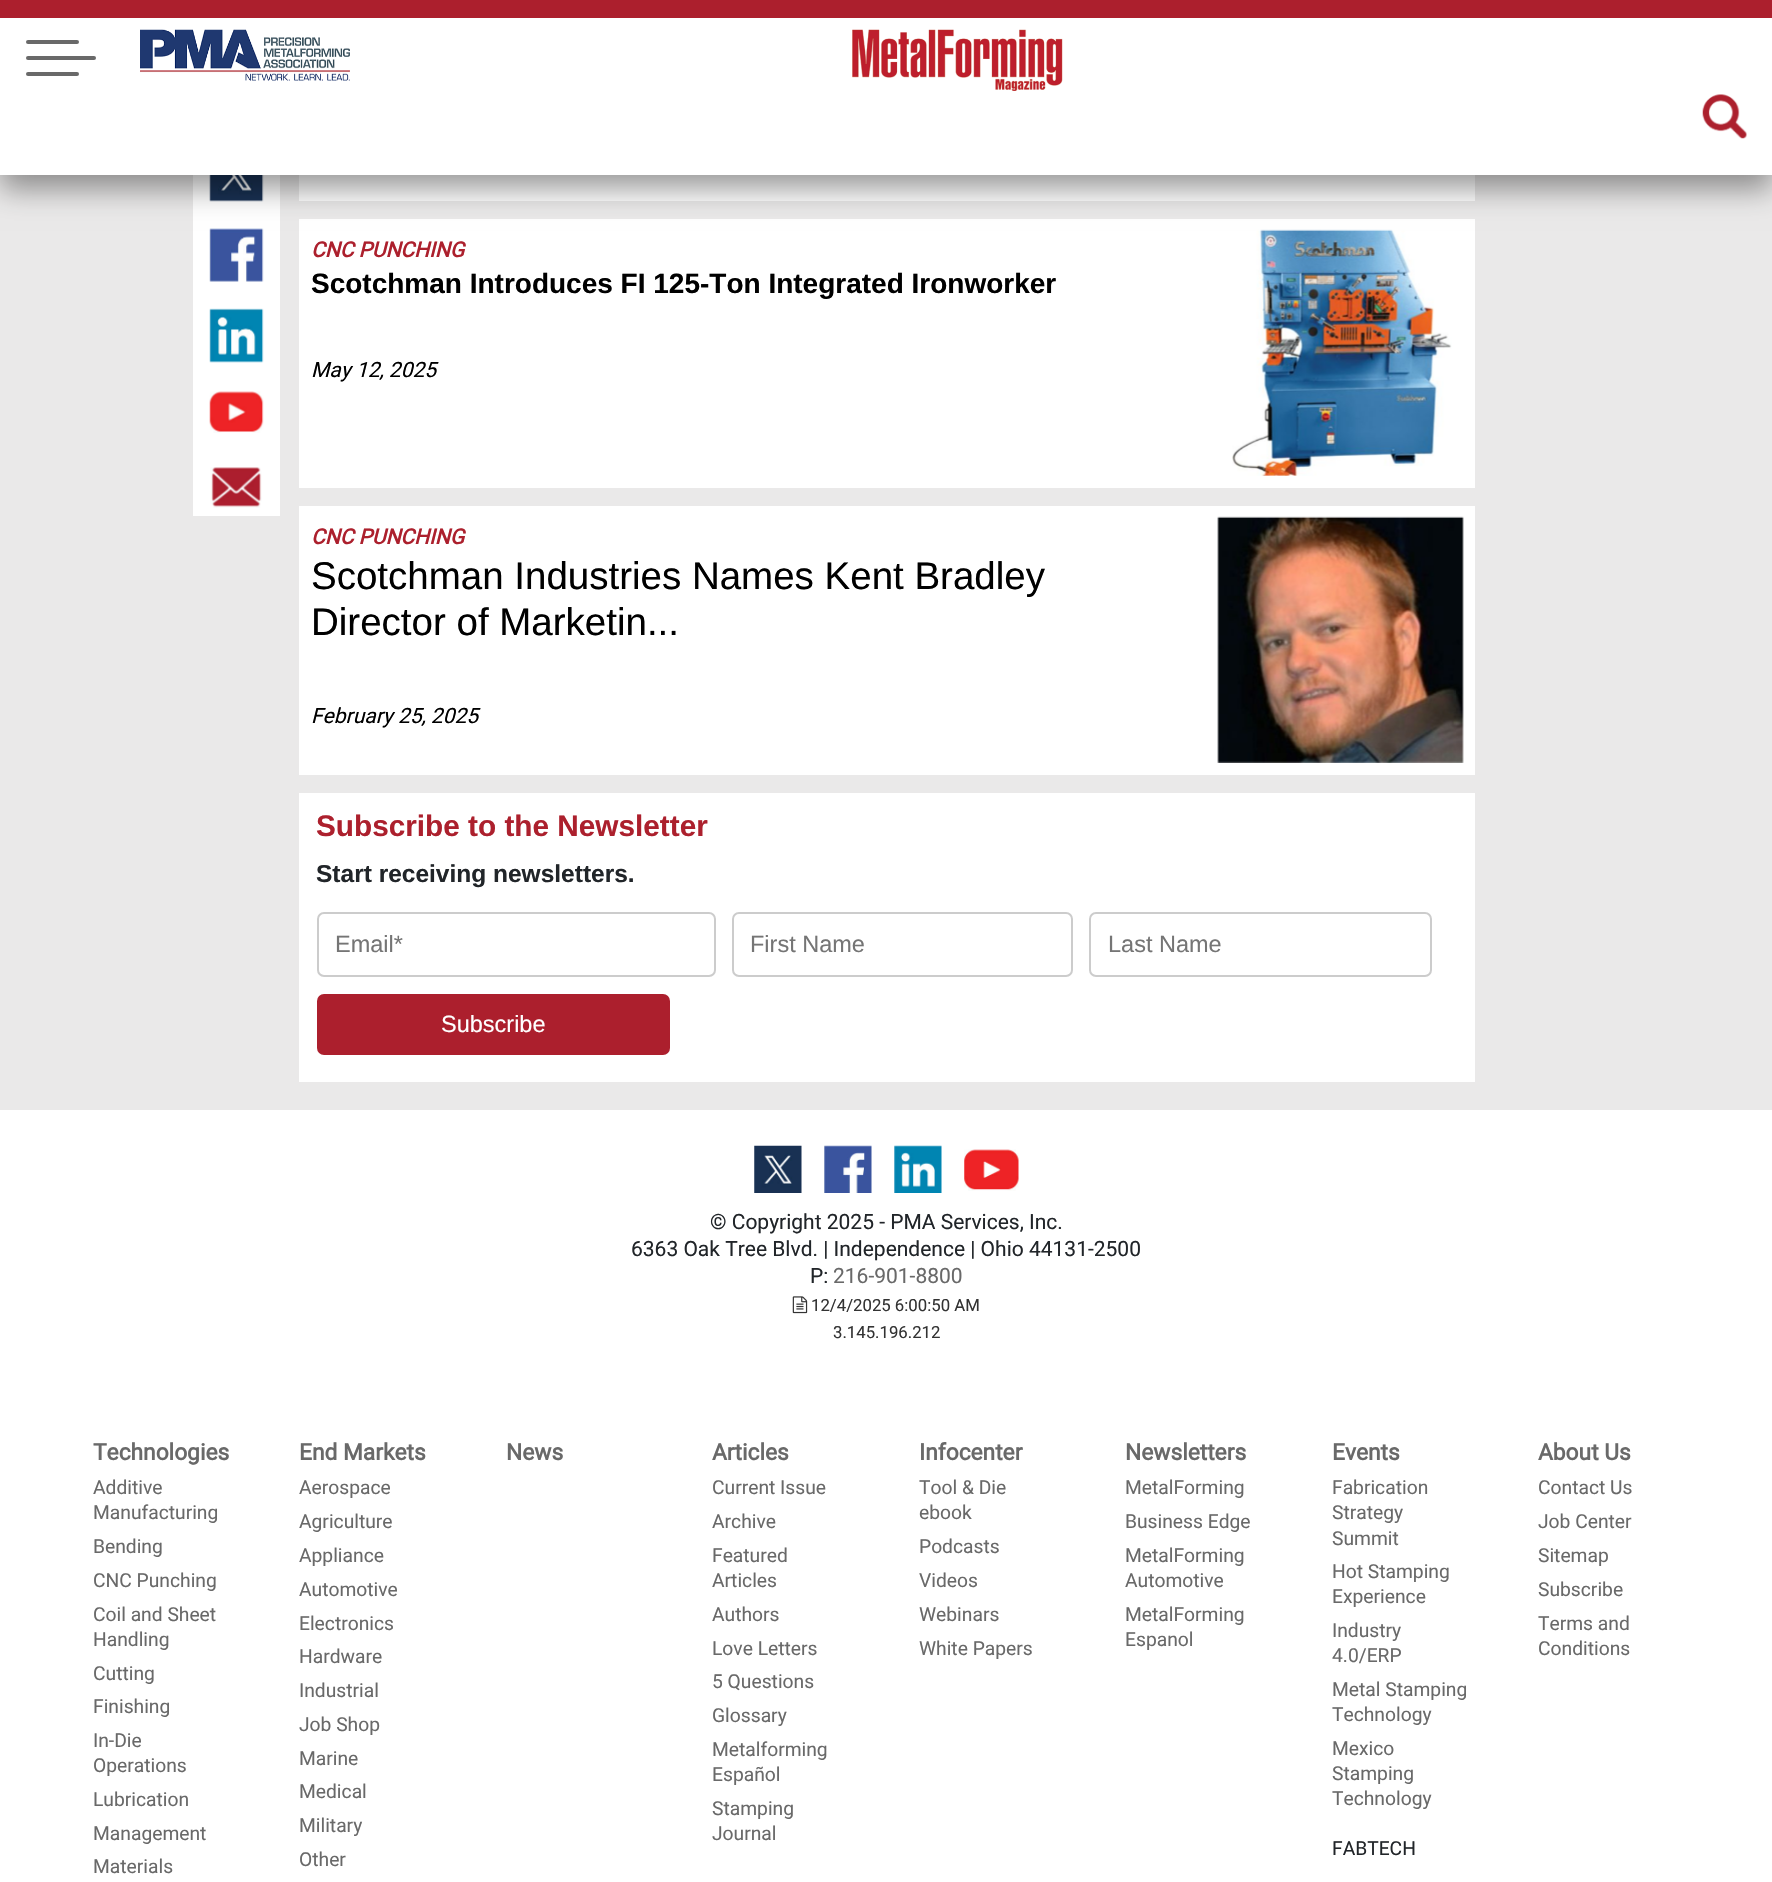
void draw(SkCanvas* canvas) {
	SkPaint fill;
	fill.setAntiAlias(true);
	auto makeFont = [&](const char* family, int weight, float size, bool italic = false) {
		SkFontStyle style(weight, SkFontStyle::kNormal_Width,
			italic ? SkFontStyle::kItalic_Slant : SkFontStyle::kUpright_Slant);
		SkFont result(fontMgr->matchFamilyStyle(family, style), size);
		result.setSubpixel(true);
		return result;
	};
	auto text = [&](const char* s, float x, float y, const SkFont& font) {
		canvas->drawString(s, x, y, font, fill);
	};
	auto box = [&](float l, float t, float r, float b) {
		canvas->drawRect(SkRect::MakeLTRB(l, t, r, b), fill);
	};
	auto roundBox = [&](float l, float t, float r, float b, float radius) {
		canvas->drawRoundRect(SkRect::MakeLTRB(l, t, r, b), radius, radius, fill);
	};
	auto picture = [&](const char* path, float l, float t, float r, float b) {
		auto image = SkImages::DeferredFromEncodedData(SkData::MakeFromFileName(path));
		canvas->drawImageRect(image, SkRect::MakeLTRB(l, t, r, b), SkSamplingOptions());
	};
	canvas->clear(0xFFEAE9E9);
	fill.setColor(0xFFFFFFFF);
	box(193, 175, 280, 516);
	picture("image3.png", 209, 175, 264, 202);
	picture("image4.png", 209, 228, 264, 282);
	box(299, 175, 1475, 201);
	box(299, 219, 1475, 488);
	picture("image8.png", 1232, 229, 1452, 476);
	fill.setColor(0x66000000);
	fill.setMaskFilter(SkMaskFilter::MakeBlur(kNormal_SkBlurStyle, 14));
	canvas->drawRect(SkRect::MakeLTRB(0, 14, 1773, 189), fill);
	fill.setMaskFilter(nullptr);
	fill.setColor(0xFFFFFFFF);
	box(0, 18, 1772, 175);
	fill.setColor(0xFFAC1F2D);
	box(0, 0, 1772, 18);
	fill.setColor(0xFF696969);
	roundBox(26, 40, 79, 44, 2);
	roundBox(26, 56, 96, 60, 2);
	roundBox(26, 72, 79, 76, 2);
	picture("image0.png", 140, 29, 350, 81);
	picture("image1.png", 852, 29, 1063, 91);
	picture("image2.png", 1702, 94, 1747, 139);
	picture("image5.png", 209, 308, 264, 363);
	picture("image6.png", 209, 391, 264, 433);
	picture("image7.png", 210, 467, 262, 508);
	fill.setColor(0xFFFFFFFF);
	box(299, 506, 1475, 775);
	picture("image9.png", 1217, 516, 1464, 763);
	box(299, 793, 1475, 1082);
	fill.setStyle(SkPaint::kStroke_Style);
	fill.setStrokeWidth(2);
	fill.setColor(0xFFCCCCCC);
	canvas->drawRoundRect(SkRect::MakeLTRB(318, 913, 715, 976), 6, 6, fill);
	canvas->drawRoundRect(SkRect::MakeLTRB(733, 913, 1072, 976), 6, 6, fill);
	canvas->drawRoundRect(SkRect::MakeLTRB(1090, 913, 1431, 976), 6, 6, fill);
	fill.setStyle(SkPaint::kFill_Style);
	fill.setColor(0xFFAC1F2D);
	roundBox(317, 994, 670, 1055, 7);
	fill.setColor(0xFFFFFFFF);
	box(0, 1110, 1772, 1882);
	picture("image10.png", 754, 1145, 802, 1193);
	picture("image11.png", 824, 1145, 872, 1193);
	picture("image12.png", 894, 1145, 942, 1193);
	picture("image13.png", 964, 1149, 1019, 1191);
	picture("image14.png", 792, 1296, 808, 1314);
	auto font1 = makeFont("Roboto", 700, 21, true);
	fill.setColor(0xFFAC202D);
	text("CNC PUNCHING", 311, 257, font1);
	auto font2 = makeFont("Liberation Sans", 700, 28);
	fill.setColor(0xFF000000);
	text("Scotchman Introduces FI 125-Ton Integrated Ironworker", 311, 293, font2);
	auto font3 = makeFont("Roboto", 400, 21, true);
	text("May 12, 2025", 311, 377, font3);
	fill.setColor(0xFFAC202D);
	text("CNC PUNCHING", 311, 544, font1);
	auto font4 = makeFont("Liberation Sans", 400, 38.5f);
	fill.setColor(0xFF000000);
	text("Scotchman Industries Names Kent Bradley", 311, 589, font4);
	text("Director of Marketin...", 311, 635, font4);
	text("February 25, 2025", 311, 723, font3);
	auto font5 = makeFont("Liberation Sans", 700, 29.75f);
	fill.setColor(0xFFAC202D);
	text("Subscribe to the Newsletter", 316, 836, font5);
	auto font6 = makeFont("Liberation Sans", 700, 24.5f);
	fill.setColor(0xFF212529);
	text("Start receiving newsletters.", 316, 882, font6);
	auto font7 = makeFont("Liberation Sans", 400, 23.5f);
	fill.setColor(0xFF757575);
	text("Email*", 335, 952, font7);
	text("First Name", 750, 952, font7);
	text("Last Name", 1108, 952, font7);
	fill.setColor(0xFFFFFFFF);
	text("Subscribe", 441, 1032, font7);
	auto font8 = makeFont("Roboto", 400, 21);
	fill.setColor(0xFF212529);
	text("© Copyright 2025 - PMA Services, Inc.", 710, 1229, font8);
	text("6363 Oak Tree Blvd. | Independence | Ohio 44131-2500", 631, 1256, font8);
	text("P:", 810, 1283, font8);
	fill.setColor(0xFF696969);
	text("216-901-8800", 833, 1283, font8);
	auto font9 = makeFont("Roboto", 400, 16.75f);
	fill.setColor(0xFF333333);
	text("12/4/2025 6:00:50 AM", 811, 1311, font9);
	text("3.145.196.212", 833, 1338, font9);
	auto font10 = makeFont("Roboto", 700, 22.75f);
	fill.setColor(0xFF696969);
	text("Technologies", 93, 1460, font10);
	auto font11 = makeFont("Roboto", 400, 19.25f);
	text("Additive", 93, 1494, font11);
	text("Manufacturing", 93, 1519, font11);
	text("Bending", 93, 1553, font11);
	text("CNC Punching", 93, 1587, font11);
	text("Coil and Sheet", 93, 1621, font11);
	text("Handling", 93, 1646, font11);
	text("Cutting", 93, 1680, font11);
	text("Finishing", 93, 1713, font11);
	text("In-Die", 93, 1747, font11);
	text("Operations", 93, 1772, font11);
	text("Lubrication", 93, 1806, font11);
	text("Management", 93, 1840, font11);
	text("Materials", 93, 1873, font11);
	text("End Markets", 299, 1460, font10);
	text("Aerospace", 299, 1494, font11);
	text("Agriculture", 299, 1528, font11);
	text("Appliance", 299, 1562, font11);
	text("Automotive", 299, 1596, font11);
	text("Electronics", 299, 1630, font11);
	text("Hardware", 299, 1663, font11);
	text("Industrial", 299, 1697, font11);
	text("Job Shop", 299, 1731, font11);
	text("Marine", 299, 1765, font11);
	text("Medical", 299, 1798, font11);
	text("Military", 299, 1832, font11);
	text("Other", 299, 1866, font11);
	text("News", 506, 1460, font10);
	text("Articles", 712, 1460, font10);
	text("Current Issue", 712, 1494, font11);
	text("Archive", 712, 1528, font11);
	text("Featured", 712, 1562, font11);
	text("Articles", 712, 1587, font11);
	text("Authors", 712, 1621, font11);
	text("Love Letters", 712, 1655, font11);
	text("5 Questions", 712, 1688, font11);
	text("Glossary", 712, 1722, font11);
	text("Metalforming", 712, 1756, font11);
	text("Español", 712, 1781, font11);
	text("Stamping", 712, 1815, font11);
	text("Journal", 712, 1840, font11);
	text("Infocenter", 919, 1460, font10);
	text("Tool & Die", 919, 1494, font11);
	text("ebook", 919, 1519, font11);
	text("Podcasts", 919, 1553, font11);
	text("Videos", 919, 1587, font11);
	text("Webinars", 919, 1621, font11);
	text("White Papers", 919, 1655, font11);
	text("Newsletters", 1125, 1460, font10);
	text("MetalForming", 1125, 1494, font11);
	text("Business Edge", 1125, 1528, font11);
	text("MetalForming", 1125, 1562, font11);
	text("Automotive", 1125, 1587, font11);
	text("MetalForming", 1125, 1621, font11);
	text("Espanol", 1125, 1646, font11);
	text("Events", 1332, 1460, font10);
	text("Fabrication", 1332, 1494, font11);
	text("Strategy", 1332, 1519, font11);
	text("Summit", 1332, 1545, font11);
	text("Hot Stamping", 1332, 1578, font11);
	text("Experience", 1332, 1603, font11);
	text("Industry", 1332, 1637, font11);
	text("4.0/ERP", 1332, 1662, font11);
	text("Metal Stamping", 1332, 1696, font11);
	text("Technology", 1332, 1721, font11);
	text("Mexico", 1332, 1755, font11);
	text("Stamping", 1332, 1780, font11);
	text("Technology", 1332, 1805, font11);
	fill.setColor(0xFF212529);
	text("FABTECH", 1332, 1855, font11);
	fill.setColor(0xFF696969);
	text("About Us", 1538, 1460, font10);
	text("Contact Us", 1538, 1494, font11);
	text("Job Center", 1538, 1528, font11);
	text("Sitemap", 1538, 1562, font11);
	text("Subscribe", 1538, 1596, font11);
	text("Terms and", 1538, 1630, font11);
	text("Conditions", 1538, 1655, font11);
}
